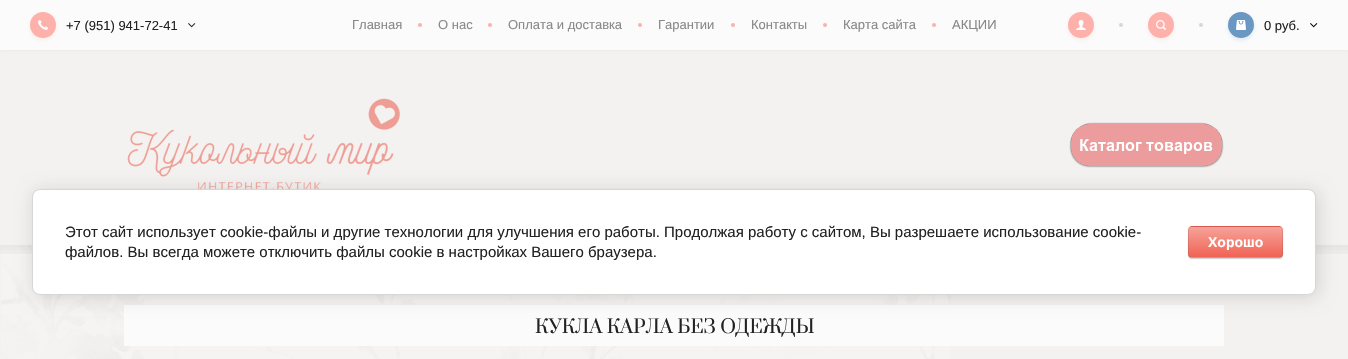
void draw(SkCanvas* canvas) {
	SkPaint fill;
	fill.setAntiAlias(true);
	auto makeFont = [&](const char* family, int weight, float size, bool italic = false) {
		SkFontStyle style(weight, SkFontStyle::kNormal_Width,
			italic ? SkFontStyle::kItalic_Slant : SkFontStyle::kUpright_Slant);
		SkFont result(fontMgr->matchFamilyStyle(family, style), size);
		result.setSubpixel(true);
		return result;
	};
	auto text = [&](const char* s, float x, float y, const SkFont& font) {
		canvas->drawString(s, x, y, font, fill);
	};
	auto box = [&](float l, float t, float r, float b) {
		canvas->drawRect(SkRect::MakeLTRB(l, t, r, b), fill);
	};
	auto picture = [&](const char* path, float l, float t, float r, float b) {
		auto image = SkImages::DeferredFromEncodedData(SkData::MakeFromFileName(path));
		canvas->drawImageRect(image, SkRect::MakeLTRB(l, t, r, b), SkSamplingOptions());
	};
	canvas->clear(0xFFF4F2F0);
	fill.setColor(0xFFEEEAE5);
	fill.setMaskFilter(SkMaskFilter::MakeBlur(kNormal_SkBlurStyle, 1));
	canvas->drawRect(SkRect::MakeLTRB(0, 1, 1348, 51), fill);
	fill.setMaskFilter(nullptr);
	fill.setColor(0xFFFBFBFB);
	box(0, 0, 1348, 50);
	fill.setColor(0x33FEB0AA);
	fill.setMaskFilter(SkMaskFilter::MakeBlur(kNormal_SkBlurStyle, 2));
	canvas->drawRoundRect(SkRect::MakeLTRB(30, 14, 56, 40), 13, 13, fill);
	fill.setMaskFilter(nullptr);
	fill.setColor(0xFFFEB0AA);
	canvas->drawCircle(43, 25, 13, fill);
	picture("image0.png", 38, 20, 48, 30);
	picture("image1.png", 188, 23, 196, 28);
	canvas->drawCircle(420, 25, 2, fill);
	canvas->drawCircle(490, 25, 2, fill);
	canvas->drawCircle(640, 25, 2, fill);
	canvas->drawCircle(733, 25, 2, fill);
	canvas->drawCircle(825, 25, 2, fill);
	canvas->drawCircle(934, 25, 2, fill);
	fill.setColor(0x33FEB0AA);
	fill.setMaskFilter(SkMaskFilter::MakeBlur(kNormal_SkBlurStyle, 2));
	canvas->drawRoundRect(SkRect::MakeLTRB(1068, 14, 1094, 40), 13, 13, fill);
	fill.setMaskFilter(nullptr);
	fill.setColor(0xFFFEB0AA);
	canvas->drawCircle(1081, 25, 13, fill);
	picture("image2.png", 1076, 20, 1086, 30);
	fill.setColor(0xFFD8D8D8);
	canvas->drawCircle(1121, 25, 2, fill);
	fill.setColor(0x33FEB0AA);
	fill.setMaskFilter(SkMaskFilter::MakeBlur(kNormal_SkBlurStyle, 2));
	canvas->drawRoundRect(SkRect::MakeLTRB(1148, 14, 1174, 40), 13, 13, fill);
	fill.setMaskFilter(nullptr);
	fill.setColor(0xFFFEB0AA);
	canvas->drawCircle(1161, 25, 13, fill);
	picture("image3.png", 1156, 20, 1166, 30);
	fill.setColor(0xFFD8D8D8);
	canvas->drawCircle(1201, 25, 2, fill);
	fill.setColor(0x336B97C3);
	fill.setMaskFilter(SkMaskFilter::MakeBlur(kNormal_SkBlurStyle, 2));
	canvas->drawRoundRect(SkRect::MakeLTRB(1228, 14, 1254, 40), 13, 13, fill);
	fill.setMaskFilter(nullptr);
	fill.setColor(0xFF6B97C3);
	canvas->drawCircle(1241, 25, 13, fill);
	picture("image4.png", 1236, 20, 1246, 30);
	picture("image5.png", 1310, 23, 1318, 28);
	picture("image6.png", 127, 98, 400, 189);
	picture("image7.png", 1069, 122, 1224, 168);
	picture("image8.png", 1, 245, 951, 359);
	{
		const SkColor colors[] = {0x0D000000, 0x00000000};
		const float stops[] = {0, 1};
		const SkPoint ends[] = {{674, 245}, {674, 260}};
		fill.setShader(SkGradientShader::MakeLinear(ends, colors, stops, 2, SkTileMode::kClamp));
		fill.setAlpha(255);
	}
	box(0, 245, 1348, 254);
	fill.setShader(nullptr);
	fill.setColor(0xFFFBFBFB);
	box(124, 305, 1224, 346);
	fill.setColor(0x24000000);
	fill.setMaskFilter(SkMaskFilter::MakeBlur(kNormal_SkBlurStyle, 9));
	canvas->drawRoundRect(SkRect::MakeLTRB(34, 191, 1318, 297), 8, 8, fill);
	fill.setMaskFilter(nullptr);
	fill.setColor(0xFFFFFFFF);
	canvas->drawRoundRect(SkRect::MakeLTRB(32.5f, 189.5f, 1315.5f, 294.5f), 7.5f, 7.5f, fill);
	fill.setStyle(SkPaint::kStroke_Style);
	fill.setStrokeWidth(1);
	fill.setColor(0xFFD6D6D6);
	canvas->drawRoundRect(SkRect::MakeLTRB(32.5f, 189.5f, 1315.5f, 294.5f), 7.5f, 7.5f, fill);
	fill.setStyle(SkPaint::kFill_Style);
	fill.setColor(0x33000000);
	fill.setMaskFilter(SkMaskFilter::MakeBlur(kNormal_SkBlurStyle, 0.5f));
	canvas->drawRoundRect(SkRect::MakeLTRB(1188, 227, 1283, 259), 4, 4, fill);
	fill.setMaskFilter(nullptr);
	canvas->save();
	canvas->clipPath(SkPathBuilder().moveTo(1192, 226).lineTo(1279, 226).cubicTo(1281, 226, 1283, 228, 1283, 230).lineTo(1283, 254).cubicTo(1283, 256, 1281, 258, 1279, 258).lineTo(1192, 258).cubicTo(1190, 258, 1188, 256, 1188, 254).lineTo(1188, 230).cubicTo(1188, 228, 1190, 226, 1192, 226).close().detach(), true);
	{
		const SkColor colors[] = {0xFFF6A39A, 0xFFF06354};
		const float stops[] = {0, 1};
		const SkPoint ends[] = {{1236, 197}, {1236, 227}};
		fill.setShader(SkGradientShader::MakeLinear(ends, colors, stops, 2, SkTileMode::kClamp));
		fill.setAlpha(255);
	}
	box(1188, 226, 1283, 227);
	{
		const SkColor colors[] = {0xFFF6A39A, 0xFFF06354};
		const float stops[] = {0, 1};
		const SkPoint ends[] = {{1236, 227}, {1236, 257}};
		fill.setShader(SkGradientShader::MakeLinear(ends, colors, stops, 2, SkTileMode::kClamp));
		fill.setAlpha(255);
	}
	box(1188, 227, 1283, 257);
	{
		const SkColor colors[] = {0xFFF6A39A, 0xFFF06354};
		const float stops[] = {0, 1};
		const SkPoint ends[] = {{1236, 257}, {1236, 287}};
		fill.setShader(SkGradientShader::MakeLinear(ends, colors, stops, 2, SkTileMode::kClamp));
		fill.setAlpha(255);
	}
	box(1188, 257, 1283, 258);
	canvas->restore();
	fill.setStyle(SkPaint::kStroke_Style);
	fill.setShader(nullptr);
	fill.setColor(0x1A000000);
	canvas->drawRoundRect(SkRect::MakeLTRB(1188.5f, 226.5f, 1282.5f, 257.5f), 3.5f, 3.5f, fill);
	auto font1 = makeFont("Liberation Sans", 400, 13);
	fill.setStyle(SkPaint::kFill_Style);
	fill.setColor(0xFF222222);
	text("+7 (951) 941-72-41", 66, 30, font1);
	fill.setColor(0xFF888888);
	text("Главная", 352, 29, font1);
	text("О нас", 438, 29, font1);
	text("Оплата и доставка", 508, 29, font1);
	text("Гарантии", 658, 29, font1);
	text("Контакты", 751, 29, font1);
	text("Карта сайта", 843, 29, font1);
	text("АКЦИИ", 952, 29, font1);
	fill.setColor(0xFF222222);
	text("0 руб.", 1264, 30, font1);
	auto font2 = makeFont("Prata", 400, 18.25f);
	text("КУКЛА КАРЛА БЕЗ ОДЕЖДЫ", 535, 333, font2);
	auto font3 = makeFont("Liberation Sans", 400, 15);
	text("Этот сайт использует cookie-файлы и другие технологии для улучшения его работы. Продолжая работу с сайтом, Вы разрешаете использование cookie-", 65, 237, font3);
	text("файлов. Вы всегда можете отключить файлы cookie в настройках Вашего браузера.", 65, 257, font3);
	auto font4 = makeFont("Liberation Sans", 700, 14);
	fill.setColor(0xFFFFFFFF);
	text("Хорошо", 1208, 247, font4);
}
